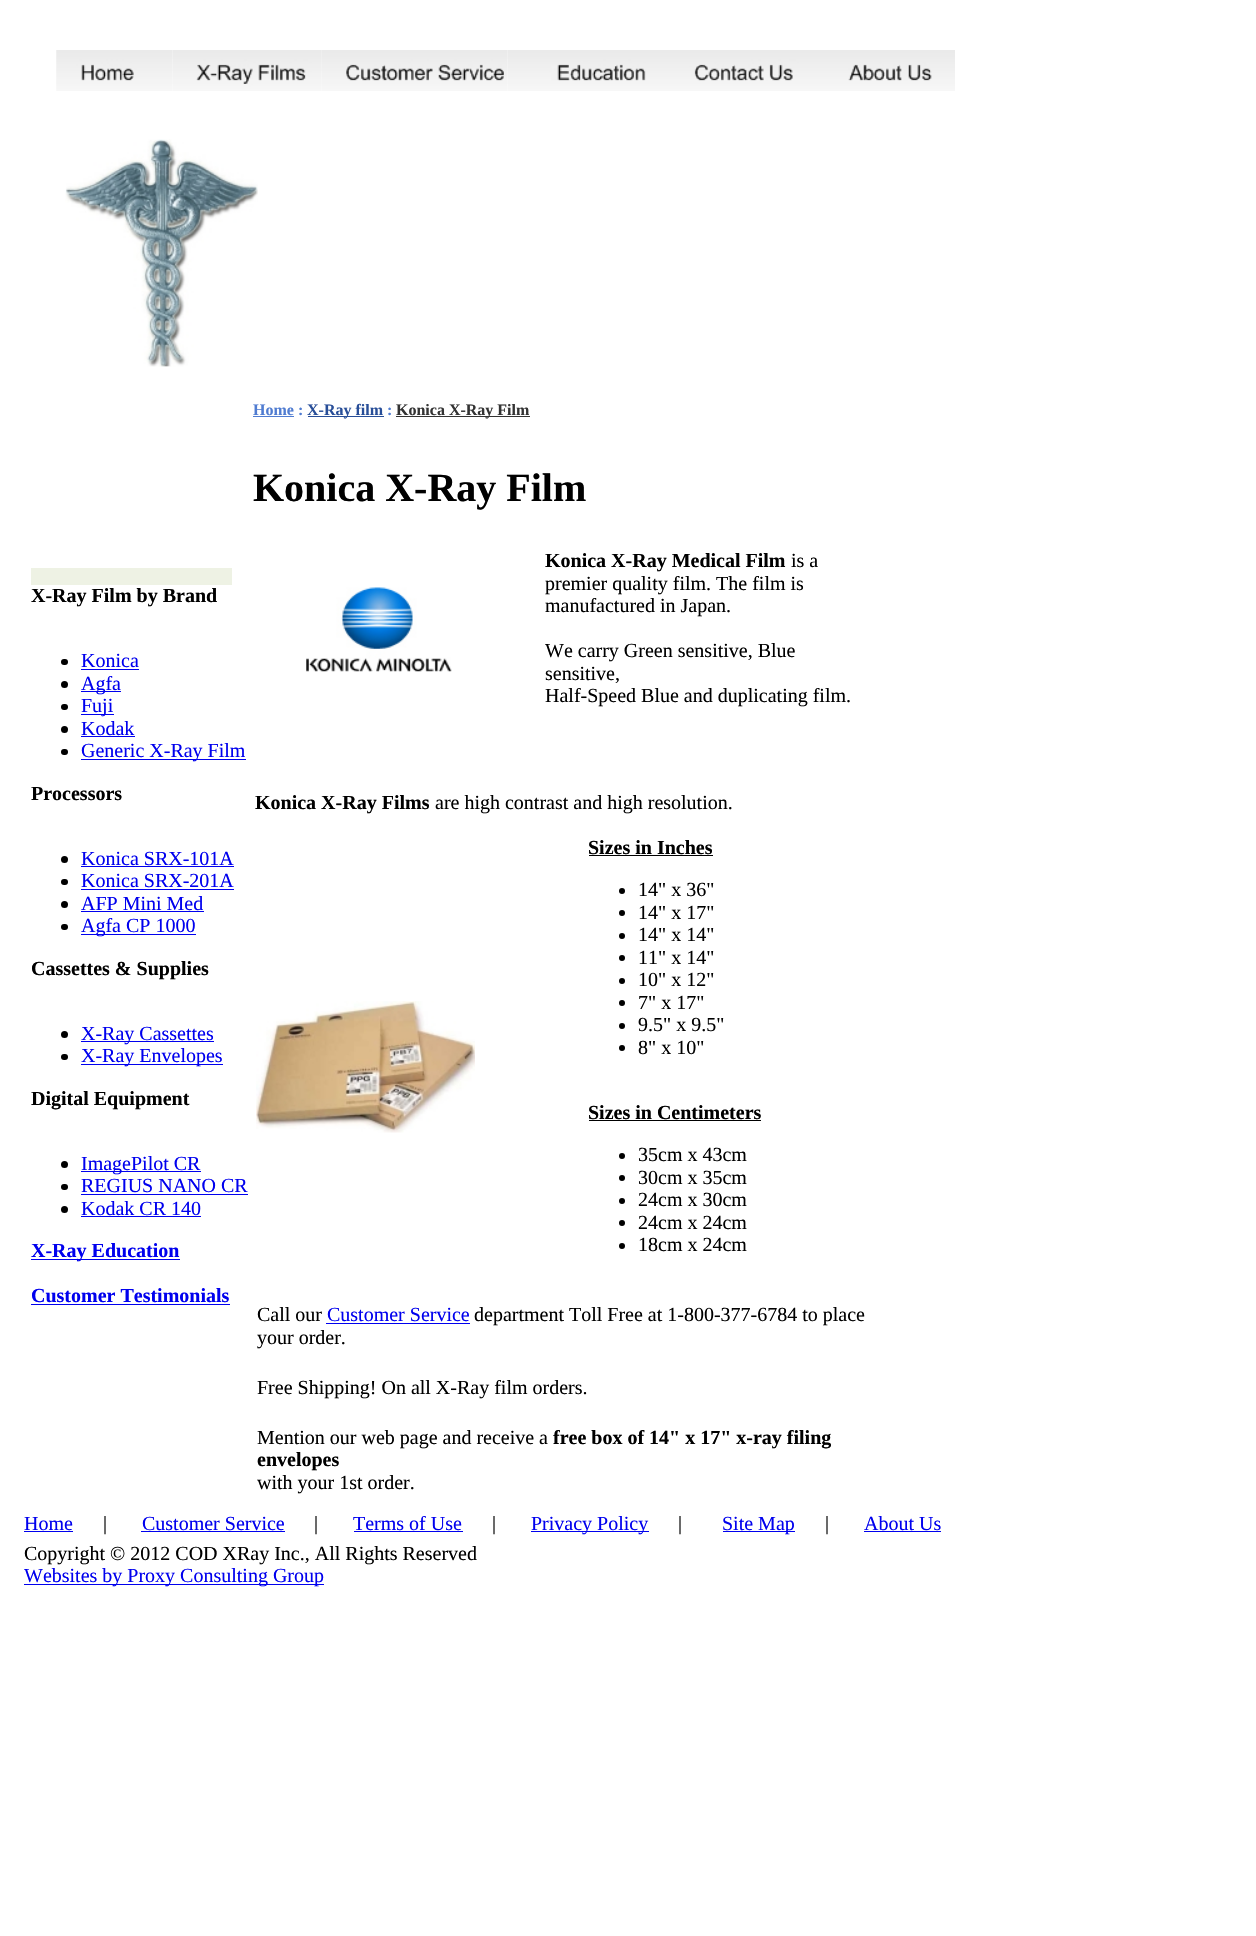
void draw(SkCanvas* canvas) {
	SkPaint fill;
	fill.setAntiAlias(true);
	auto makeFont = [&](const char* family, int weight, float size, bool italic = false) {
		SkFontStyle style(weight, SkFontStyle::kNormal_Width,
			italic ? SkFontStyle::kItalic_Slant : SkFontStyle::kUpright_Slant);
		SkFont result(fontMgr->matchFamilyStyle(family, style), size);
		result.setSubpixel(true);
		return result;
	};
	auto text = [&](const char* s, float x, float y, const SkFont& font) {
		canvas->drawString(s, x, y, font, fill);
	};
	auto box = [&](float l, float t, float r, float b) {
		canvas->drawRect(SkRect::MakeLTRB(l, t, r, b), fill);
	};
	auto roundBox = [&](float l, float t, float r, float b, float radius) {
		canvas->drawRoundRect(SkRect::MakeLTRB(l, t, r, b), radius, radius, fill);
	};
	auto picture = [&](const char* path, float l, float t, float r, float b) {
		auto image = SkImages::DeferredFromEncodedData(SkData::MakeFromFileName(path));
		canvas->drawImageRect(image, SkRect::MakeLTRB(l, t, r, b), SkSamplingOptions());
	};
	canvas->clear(0xFFFFFFFF);
	picture("image0.png", 56, 50, 173, 91);
	picture("image1.png", 172, 50, 322, 91);
	picture("image2.png", 321, 50, 508, 91);
	picture("image3.png", 507, 50, 670, 91);
	picture("image4.png", 670, 50, 825, 91);
	picture("image5.png", 825, 50, 955, 91);
	picture("image6.png", 65, 139, 258, 367);
	fill.setColor(0xFFEEF2E4);
	box(31, 568, 232, 585);
	fill.setColor(0xFF000000);
	roundBox(61, 659, 68, 665, 3);
	fill.setColor(0xFF0000EE);
	box(81, 669, 139, 670);
	fill.setColor(0xFF000000);
	canvas->drawCircle(64.5f, 684.5f, 3.5f, fill);
	fill.setColor(0xFF0000EE);
	box(81, 691, 121, 692);
	fill.setColor(0xFF000000);
	roundBox(61, 704, 68, 710, 3);
	fill.setColor(0xFF0000EE);
	box(81, 714, 114, 715);
	fill.setColor(0xFF000000);
	canvas->drawCircle(64.5f, 729.5f, 3.5f, fill);
	fill.setColor(0xFF0000EE);
	box(81, 736, 135, 737);
	fill.setColor(0xFF000000);
	roundBox(61, 749, 68, 755, 3);
	fill.setColor(0xFF0000EE);
	box(81, 759, 246, 760);
	fill.setColor(0xFF000000);
	canvas->drawCircle(64.5f, 859.5f, 3.5f, fill);
	fill.setColor(0xFF0000EE);
	box(81, 866, 234, 867);
	fill.setColor(0xFF000000);
	roundBox(61, 879, 68, 885, 3);
	fill.setColor(0xFF0000EE);
	box(81, 889, 234, 890);
	fill.setColor(0xFF000000);
	canvas->drawCircle(64.5f, 904.5f, 3.5f, fill);
	fill.setColor(0xFF0000EE);
	box(81, 911, 204, 912);
	fill.setColor(0xFF000000);
	roundBox(61, 924, 68, 930, 3);
	fill.setColor(0xFF0000EE);
	box(81, 934, 196, 935);
	fill.setColor(0xFF000000);
	canvas->drawCircle(64.5f, 1034.5f, 3.5f, fill);
	fill.setColor(0xFF0000EE);
	box(81, 1041, 214, 1042);
	fill.setColor(0xFF000000);
	roundBox(61, 1054, 68, 1060, 3);
	fill.setColor(0xFF0000EE);
	box(81, 1064, 223, 1065);
	fill.setColor(0xFF000000);
	canvas->drawCircle(64.5f, 1164.5f, 3.5f, fill);
	fill.setColor(0xFF0000EE);
	box(81, 1171, 201, 1172);
	fill.setColor(0xFF000000);
	roundBox(61, 1184, 68, 1190, 3);
	fill.setColor(0xFF0000EE);
	box(81, 1194, 248, 1195);
	fill.setColor(0xFF000000);
	canvas->drawCircle(64.5f, 1209.5f, 3.5f, fill);
	fill.setColor(0xFF0000EE);
	box(81, 1216, 201, 1217);
	box(31, 1259, 180, 1260);
	box(31, 1304, 230, 1305);
	fill.setColor(0xFF507CD1);
	box(253, 416, 294, 417);
	fill.setColor(0xFF284E98);
	box(308, 416, 384, 417);
	fill.setColor(0xFF333333);
	box(396, 416, 530, 417);
	picture("image7.png", 306, 587, 452, 672);
	picture("image8.png", 256, 1001, 475, 1133);
	fill.setColor(0xFF000000);
	box(589, 855, 713, 856);
	canvas->drawCircle(622, 891, 3, fill);
	canvas->drawCircle(622, 913, 3, fill);
	canvas->drawCircle(622, 936, 3, fill);
	canvas->drawCircle(622, 958, 3, fill);
	canvas->drawCircle(622, 981, 3, fill);
	canvas->drawCircle(622, 1003, 3, fill);
	canvas->drawCircle(622, 1026, 3, fill);
	canvas->drawCircle(622, 1048, 3, fill);
	box(589, 1120, 761, 1121);
	canvas->drawCircle(622, 1156, 3, fill);
	canvas->drawCircle(622, 1178, 3, fill);
	canvas->drawCircle(622, 1201, 3, fill);
	canvas->drawCircle(622, 1223, 3, fill);
	canvas->drawCircle(622, 1246, 3, fill);
	fill.setColor(0xFF0000EE);
	box(326, 1323, 470, 1324);
	box(24, 1531, 73, 1532);
	box(141, 1531, 285, 1532);
	box(354, 1531, 463, 1532);
	box(531, 1531, 649, 1532);
	box(723, 1531, 795, 1532);
	box(864, 1531, 941, 1532);
	box(24, 1584, 324, 1585);
	auto font1 = makeFont("Liberation Serif", 700, 20);
	fill.setColor(0xFF000000);
	text("X-Ray Film by Brand", 31, 602, font1);
	auto font2 = makeFont("Liberation Serif", 400, 20);
	fill.setColor(0xFF0000EE);
	text("Konica", 81, 667, font2);
	text("Agfa", 81, 690, font2);
	text("Fuji", 81, 712, font2);
	text("Kodak", 81, 735, font2);
	text("Generic X-Ray Film", 81, 757, font2);
	fill.setColor(0xFF000000);
	text("Processors", 31, 800, font1);
	fill.setColor(0xFF0000EE);
	text("Konica SRX-101A", 81, 865, font2);
	text("Konica SRX-201A", 81, 887, font2);
	text("AFP Mini Med", 81, 910, font2);
	text("Agfa CP 1000", 81, 932, font2);
	fill.setColor(0xFF000000);
	text("Cassettes & Supplies", 31, 975, font1);
	fill.setColor(0xFF0000EE);
	text("X-Ray Cassettes", 81, 1040, font2);
	text("X-Ray Envelopes", 81, 1062, font2);
	fill.setColor(0xFF000000);
	text("Digital Equipment", 31, 1105, font1);
	fill.setColor(0xFF0000EE);
	text("ImagePilot CR", 81, 1170, font2);
	text("REGIUS NANO CR", 81, 1192, font2);
	text("Kodak CR 140", 81, 1215, font2);
	text("X-Ray Education", 31, 1257, font1);
	text("Customer Testimonials", 31, 1302, font1);
	auto font3 = makeFont("Liberation Serif", 700, 16);
	fill.setColor(0xFF507CD1);
	text("Home :", 253, 415, font3);
	fill.setColor(0xFF284E98);
	text("X-Ray film", 307, 415, font3);
	fill.setColor(0xFF507CD1);
	text(":", 387, 415, font3);
	fill.setColor(0xFF333333);
	text("Konica X-Ray Film", 396, 415, font3);
	auto font4 = makeFont("Liberation Serif", 700, 40);
	fill.setColor(0xFF000000);
	text("Konica X-Ray Film", 253, 501, font4);
	text("Konica X-Ray Medical Film", 545, 567, font1);
	text("is a", 791, 567, font2);
	text("premier quality film. The film is", 545, 590, font2);
	text("manufactured in Japan.", 545, 612, font2);
	text("We carry Green sensitive, Blue", 545, 657, font2);
	text("sensitive,", 545, 680, font2);
	text("Half-Speed Blue and duplicating film.", 545, 702, font2);
	text("Konica X-Ray Films", 255, 809, font1);
	text("are high contrast and high resolution.", 435, 809, font2);
	text("Sizes in Inches", 588, 854, font1);
	text("14\" x 36\"", 638, 896, font2);
	text("14\" x 17\"", 638, 919, font2);
	text("14\" x 14\"", 638, 941, font2);
	text("11\" x 14\"", 638, 964, font2);
	text("10\" x 12\"", 638, 986, font2);
	text("7\" x 17\"", 638, 1009, font2);
	text("9.5\" x 9.5\"", 638, 1031, font2);
	text("8\" x 10\"", 638, 1054, font2);
	text("Sizes in Centimeters", 588, 1119, font1);
	text("35cm x 43cm", 638, 1161, font2);
	text("30cm x 35cm", 638, 1184, font2);
	text("24cm x 30cm", 638, 1206, font2);
	text("24cm x 24cm", 638, 1229, font2);
	text("18cm x 24cm", 638, 1251, font2);
	text("Call our", 257, 1321, font2);
	fill.setColor(0xFF0000EE);
	text("Customer Service", 327, 1321, font2);
	fill.setColor(0xFF000000);
	text("department Toll Free at 1-800-377-6784 to place", 474, 1321, font2);
	text("your order.", 257, 1344, font2);
	text("Free Shipping! On all X-Ray film orders.", 257, 1394, font2);
	text("Mention our web page and receive a", 257, 1444, font2);
	text("free box of 14\" x 17\" x-ray filing", 553, 1444, font1);
	text("envelopes", 257, 1466, font1);
	text("with your 1st order.", 257, 1489, font2);
	fill.setColor(0xFF0000EE);
	text("Home", 24, 1530, font2);
	fill.setColor(0xFF000000);
	text("|", 103, 1530, font2);
	fill.setColor(0xFF0000EE);
	text("Customer Service", 142, 1530, font2);
	fill.setColor(0xFF000000);
	text("|", 314, 1530, font2);
	fill.setColor(0xFF0000EE);
	text("Terms of Use", 353, 1530, font2);
	fill.setColor(0xFF000000);
	text("|", 492, 1530, font2);
	fill.setColor(0xFF0000EE);
	text("Privacy Policy", 531, 1530, font2);
	fill.setColor(0xFF000000);
	text("|", 678, 1530, font2);
	fill.setColor(0xFF0000EE);
	text("Site Map", 722, 1530, font2);
	fill.setColor(0xFF000000);
	text("|", 825, 1530, font2);
	fill.setColor(0xFF0000EE);
	text("About Us", 864, 1530, font2);
	fill.setColor(0xFF000000);
	text("Copyright © 2012 COD XRay Inc., All Rights Reserved", 24, 1560, font2);
	fill.setColor(0xFF0000EE);
	text("Websites by Proxy Consulting Group", 24, 1582, font2);
}
